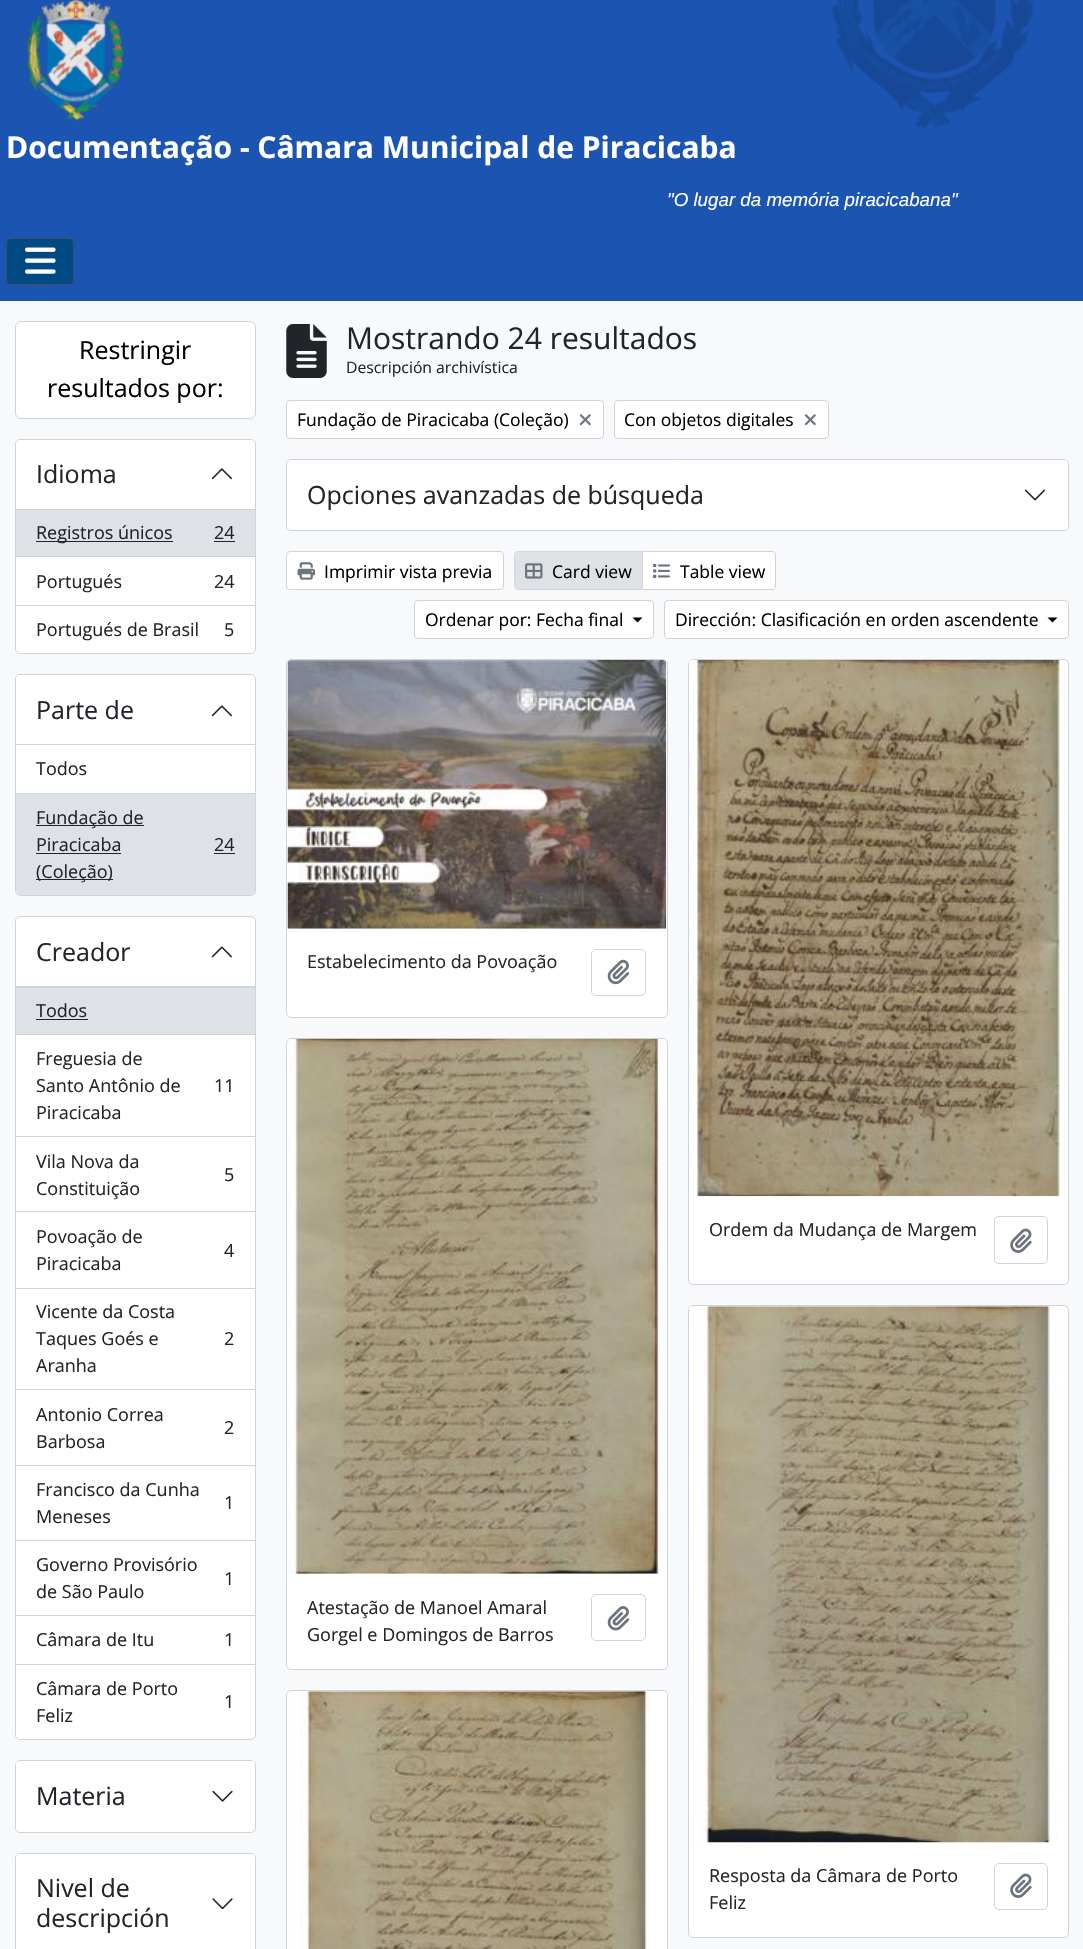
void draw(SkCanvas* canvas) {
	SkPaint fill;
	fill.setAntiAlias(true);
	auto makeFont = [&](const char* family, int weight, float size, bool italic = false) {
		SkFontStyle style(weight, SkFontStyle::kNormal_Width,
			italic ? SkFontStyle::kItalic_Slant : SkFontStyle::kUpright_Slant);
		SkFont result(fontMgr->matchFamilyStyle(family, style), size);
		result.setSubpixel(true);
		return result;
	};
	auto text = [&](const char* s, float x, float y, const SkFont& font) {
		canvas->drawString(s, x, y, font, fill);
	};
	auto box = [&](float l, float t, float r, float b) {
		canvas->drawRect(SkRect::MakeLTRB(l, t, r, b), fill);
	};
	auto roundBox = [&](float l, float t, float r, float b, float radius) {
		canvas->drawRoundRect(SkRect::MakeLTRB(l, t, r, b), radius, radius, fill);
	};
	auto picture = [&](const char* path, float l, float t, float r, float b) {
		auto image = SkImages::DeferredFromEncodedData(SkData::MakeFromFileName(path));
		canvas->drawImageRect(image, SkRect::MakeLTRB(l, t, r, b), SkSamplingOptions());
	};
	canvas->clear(0xFFF8F9FA);
	fill.setColor(0xFF1C54B2);
	box(0, 0, 1083, 301);
	picture("image0.png", 831, 0, 1034, 129);
	picture("image1.png", 26, 0, 124, 121);
	fill.setColor(0xFF004983);
	canvas->drawRoundRect(SkRect::MakeLTRB(6.5f, 238.5f, 73.5f, 284.5f), 4.5f, 4.5f, fill);
	fill.setStyle(SkPaint::kStroke_Style);
	fill.setStrokeWidth(1);
	fill.setColor(0xFF495057);
	canvas->drawRoundRect(SkRect::MakeLTRB(6.5f, 238.5f, 73.5f, 284.5f), 4.5f, 4.5f, fill);
	picture("image2.png", 25, 247, 56, 274);
	fill.setStyle(SkPaint::kFill_Style);
	fill.setColor(0xFFFFFFFF);
	canvas->drawRoundRect(SkRect::MakeLTRB(15.5f, 321.5f, 255.5f, 418.5f), 5.5f, 5.5f, fill);
	fill.setStyle(SkPaint::kStroke_Style);
	fill.setColor(0xFFCED4DA);
	canvas->drawRoundRect(SkRect::MakeLTRB(15.5f, 321.5f, 255.5f, 418.5f), 5.5f, 5.5f, fill);
	fill.setStyle(SkPaint::kFill_Style);
	fill.setColor(0xFFFFFFFF);
	canvas->drawRoundRect(SkRect::MakeLTRB(15.5f, 439.5f, 255.5f, 653.5f), 4.5f, 4.5f, fill);
	fill.setStyle(SkPaint::kStroke_Style);
	fill.setColor(0xFFCED4DA);
	canvas->drawRoundRect(SkRect::MakeLTRB(15.5f, 439.5f, 255.5f, 653.5f), 4.5f, 4.5f, fill);
	fill.setStyle(SkPaint::kFill_Style);
	fill.setColor(0xFFFFFFFF);
	canvas->drawPath(SkPathBuilder().moveTo(20, 440).lineTo(251, 440).cubicTo(253, 440, 255, 442, 255, 444).lineTo(255, 510).lineTo(16, 510).lineTo(16, 444).cubicTo(16, 442, 18, 440, 20, 440).close().detach(), fill);
	fill.setColor(0xFFCED4DA);
	box(16, 509, 255, 510);
	picture("image3.png", 211, 468, 232, 480);
	fill.setColor(0xFFDEE2E6);
	box(16, 510, 255, 556);
	fill.setColor(0xFFCED4DA);
	box(16, 556, 255, 557);
	fill.setColor(0xFF212529);
	box(36, 541, 173, 542);
	box(214, 541, 235, 542);
	fill.setColor(0xFFCED4DA);
	box(16, 605, 255, 606);
	fill.setColor(0xFFFFFFFF);
	canvas->drawPath(SkPathBuilder().moveTo(16, 606).lineTo(255, 606).lineTo(255, 648).cubicTo(255, 651, 253, 653, 250, 653).lineTo(21, 653).cubicTo(18, 653, 16, 651, 16, 648).close().detach(), fill);
	canvas->drawRoundRect(SkRect::MakeLTRB(15.5f, 674.5f, 255.5f, 895.5f), 4.5f, 4.5f, fill);
	fill.setStyle(SkPaint::kStroke_Style);
	fill.setColor(0xFFCED4DA);
	canvas->drawRoundRect(SkRect::MakeLTRB(15.5f, 674.5f, 255.5f, 895.5f), 4.5f, 4.5f, fill);
	fill.setStyle(SkPaint::kFill_Style);
	fill.setColor(0xFFFFFFFF);
	canvas->drawPath(SkPathBuilder().moveTo(20, 675).lineTo(251, 675).cubicTo(253, 675, 255, 677, 255, 679).lineTo(255, 745).lineTo(16, 745).lineTo(16, 679).cubicTo(16, 677, 18, 675, 20, 675).close().detach(), fill);
	fill.setColor(0xFFCED4DA);
	box(16, 744, 255, 745);
	picture("image4.png", 211, 705, 232, 717);
	box(16, 793, 255, 794);
	fill.setColor(0xFFDEE2E6);
	canvas->drawPath(SkPathBuilder().moveTo(16, 794).lineTo(255, 794).lineTo(255, 890).cubicTo(255, 893, 253, 895, 250, 895).lineTo(21, 895).cubicTo(18, 895, 16, 893, 16, 890).close().detach(), fill);
	fill.setColor(0xFF212529);
	box(36, 825, 144, 826);
	box(36, 853, 121, 854);
	box(214, 853, 235, 854);
	box(36, 879, 113, 880);
	fill.setColor(0xFFFFFFFF);
	canvas->drawRoundRect(SkRect::MakeLTRB(15.5f, 916.5f, 255.5f, 1739.5f), 4.5f, 4.5f, fill);
	fill.setStyle(SkPaint::kStroke_Style);
	fill.setColor(0xFFCED4DA);
	canvas->drawRoundRect(SkRect::MakeLTRB(15.5f, 916.5f, 255.5f, 1739.5f), 4.5f, 4.5f, fill);
	fill.setStyle(SkPaint::kFill_Style);
	box(16, 986, 255, 988);
	picture("image5.png", 211, 946, 232, 958);
	fill.setColor(0xFFDEE2E6);
	box(16, 988, 255, 1034);
	fill.setColor(0xFFCED4DA);
	box(16, 1034, 255, 1035);
	fill.setColor(0xFF212529);
	box(36, 1019, 88, 1020);
	fill.setColor(0xFFCED4DA);
	box(16, 1136, 255, 1137);
	box(16, 1211, 255, 1212);
	box(16, 1288, 255, 1289);
	box(16, 1389, 255, 1390);
	box(16, 1465, 255, 1466);
	box(16, 1540, 255, 1541);
	box(16, 1615, 255, 1616);
	box(16, 1664, 255, 1665);
	fill.setColor(0xFFFFFFFF);
	canvas->drawPath(SkPathBuilder().moveTo(16, 1665).lineTo(255, 1665).lineTo(255, 1734).cubicTo(255, 1737, 253, 1739, 250, 1739).lineTo(21, 1739).cubicTo(18, 1739, 16, 1737, 16, 1734).close().detach(), fill);
	canvas->drawRoundRect(SkRect::MakeLTRB(15.5f, 1760.5f, 255.5f, 1832.5f), 4.5f, 4.5f, fill);
	fill.setStyle(SkPaint::kStroke_Style);
	fill.setColor(0xFFCED4DA);
	canvas->drawRoundRect(SkRect::MakeLTRB(15.5f, 1760.5f, 255.5f, 1832.5f), 4.5f, 4.5f, fill);
	fill.setStyle(SkPaint::kFill_Style);
	fill.setColor(0xFFFFFFFF);
	roundBox(16, 1761, 255, 1831, 4);
	picture("image6.png", 212, 1790, 233, 1802);
	fill.setStyle(SkPaint::kStroke_Style);
	fill.setColor(0xFFCED4DA);
	canvas->drawRoundRect(SkRect::MakeLTRB(15.5f, 1853.5f, 255.5f, 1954.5f), 4.5f, 4.5f, fill);
	fill.setStyle(SkPaint::kFill_Style);
	fill.setColor(0xFFFFFFFF);
	roundBox(16, 1854, 255, 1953, 4);
	picture("image7.png", 212, 1898, 233, 1910);
	picture("image8.png", 286, 324, 327, 378);
	canvas->drawRoundRect(SkRect::MakeLTRB(286.5f, 400.5f, 603.5f, 438.5f), 3.5f, 3.5f, fill);
	fill.setStyle(SkPaint::kStroke_Style);
	fill.setColor(0xFFCED4DA);
	canvas->drawRoundRect(SkRect::MakeLTRB(286.5f, 400.5f, 603.5f, 438.5f), 3.5f, 3.5f, fill);
	picture("image9.png", 579, 414, 591, 426);
	fill.setStyle(SkPaint::kFill_Style);
	fill.setColor(0xFFFFFFFF);
	canvas->drawRoundRect(SkRect::MakeLTRB(614.5f, 400.5f, 828.5f, 438.5f), 3.5f, 3.5f, fill);
	fill.setStyle(SkPaint::kStroke_Style);
	fill.setColor(0xFFCED4DA);
	canvas->drawRoundRect(SkRect::MakeLTRB(614.5f, 400.5f, 828.5f, 438.5f), 3.5f, 3.5f, fill);
	picture("image9.png", 804, 414, 816, 426);
	fill.setStyle(SkPaint::kFill_Style);
	fill.setColor(0xFFFFFFFF);
	canvas->drawRoundRect(SkRect::MakeLTRB(286.5f, 459.5f, 1068.5f, 530.5f), 4.5f, 4.5f, fill);
	fill.setStyle(SkPaint::kStroke_Style);
	fill.setColor(0xFFCED4DA);
	canvas->drawRoundRect(SkRect::MakeLTRB(286.5f, 459.5f, 1068.5f, 530.5f), 4.5f, 4.5f, fill);
	fill.setStyle(SkPaint::kFill_Style);
	fill.setColor(0xFFFFFFFF);
	roundBox(288, 460, 1068, 530, 4);
	picture("image10.png", 1024, 489, 1046, 501);
	canvas->drawRoundRect(SkRect::MakeLTRB(286.5f, 551.5f, 503.5f, 589.5f), 3.5f, 3.5f, fill);
	fill.setStyle(SkPaint::kStroke_Style);
	fill.setColor(0xFFCED4DA);
	canvas->drawRoundRect(SkRect::MakeLTRB(286.5f, 551.5f, 503.5f, 589.5f), 3.5f, 3.5f, fill);
	picture("image11.png", 297, 562, 315, 580);
	fill.setStyle(SkPaint::kFill_Style);
	fill.setColor(0xFFFFFFFF);
	canvas->drawPath(SkPathBuilder().moveTo(641.5f, 551.5f).lineTo(772, 551.5f).cubicTo(774, 551.5f, 775.5f, 553, 775.5f, 555).lineTo(775.5f, 586).cubicTo(775.5f, 588, 774, 589.5f, 772, 589.5f).lineTo(641.5f, 589.5f).close().detach(), fill);
	fill.setStyle(SkPaint::kStroke_Style);
	fill.setColor(0xFFCED4DA);
	canvas->drawPath(SkPathBuilder().moveTo(641.5f, 551.5f).lineTo(772, 551.5f).cubicTo(774, 551.5f, 775.5f, 553, 775.5f, 555).lineTo(775.5f, 586).cubicTo(775.5f, 588, 774, 589.5f, 772, 589.5f).lineTo(641.5f, 589.5f).close().detach(), fill);
	fill.setStyle(SkPaint::kFill_Style);
	fill.setColor(0xFFDEE2E6);
	canvas->drawPath(SkPathBuilder().moveTo(518, 551.5f).lineTo(642.5f, 551.5f).lineTo(642.5f, 589.5f).lineTo(518, 589.5f).cubicTo(516, 589.5f, 514.5f, 588, 514.5f, 586).lineTo(514.5f, 555).cubicTo(514.5f, 553, 516, 551.5f, 518, 551.5f).close().detach(), fill);
	fill.setStyle(SkPaint::kStroke_Style);
	fill.setColor(0xFFD3D8DE);
	canvas->drawPath(SkPathBuilder().moveTo(518, 551.5f).lineTo(642.5f, 551.5f).lineTo(642.5f, 589.5f).lineTo(518, 589.5f).cubicTo(516, 589.5f, 514.5f, 588, 514.5f, 586).lineTo(514.5f, 555).cubicTo(514.5f, 553, 516, 551.5f, 518, 551.5f).close().detach(), fill);
	picture("image12.png", 525, 563, 543, 579);
	picture("image13.png", 653, 563, 670, 579);
	fill.setStyle(SkPaint::kFill_Style);
	fill.setColor(0xFFFFFFFF);
	canvas->drawRoundRect(SkRect::MakeLTRB(414.5f, 600.5f, 653.5f, 638.5f), 3.5f, 3.5f, fill);
	fill.setStyle(SkPaint::kStroke_Style);
	fill.setColor(0xFFCED4DA);
	canvas->drawRoundRect(SkRect::MakeLTRB(414.5f, 600.5f, 653.5f, 638.5f), 3.5f, 3.5f, fill);
	fill.setStyle(SkPaint::kFill_Style);
	fill.setColor(0xFF000000);
	canvas->drawPath(SkPathBuilder().moveTo(632.5f, 617.5f).lineTo(642.5f, 617.5f).lineTo(637.5f, 622.5f).close().detach(), fill);
	fill.setColor(0xFFFFFFFF);
	canvas->drawRoundRect(SkRect::MakeLTRB(664.5f, 600.5f, 1068.5f, 638.5f), 3.5f, 3.5f, fill);
	fill.setStyle(SkPaint::kStroke_Style);
	fill.setColor(0xFFCED4DA);
	canvas->drawRoundRect(SkRect::MakeLTRB(664.5f, 600.5f, 1068.5f, 638.5f), 3.5f, 3.5f, fill);
	fill.setStyle(SkPaint::kFill_Style);
	fill.setColor(0xFF000000);
	canvas->drawPath(SkPathBuilder().moveTo(1047.5f, 617.5f).lineTo(1057.5f, 617.5f).lineTo(1052.5f, 622.5f).close().detach(), fill);
	fill.setColor(0xFFFFFFFF);
	canvas->drawRoundRect(SkRect::MakeLTRB(286.5f, 659.5f, 667.5f, 1017.5f), 4.5f, 4.5f, fill);
	fill.setStyle(SkPaint::kStroke_Style);
	fill.setColor(0xFFCED4DA);
	canvas->drawRoundRect(SkRect::MakeLTRB(286.5f, 659.5f, 667.5f, 1017.5f), 4.5f, 4.5f, fill);
	picture("image14.png", 287, 660, 667, 929);
	canvas->drawRoundRect(SkRect::MakeLTRB(591.5f, 949.5f, 645.5f, 995.5f), 4.5f, 4.5f, fill);
	picture("image15.png", 607, 959, 630, 985);
	fill.setStyle(SkPaint::kFill_Style);
	fill.setColor(0xFFFFFFFF);
	canvas->drawRoundRect(SkRect::MakeLTRB(688.5f, 659.5f, 1068.5f, 1284.5f), 4.5f, 4.5f, fill);
	fill.setStyle(SkPaint::kStroke_Style);
	fill.setColor(0xFFCED4DA);
	canvas->drawRoundRect(SkRect::MakeLTRB(688.5f, 659.5f, 1068.5f, 1284.5f), 4.5f, 4.5f, fill);
	picture("image16.png", 689, 660, 1067, 1197);
	canvas->drawRoundRect(SkRect::MakeLTRB(994.5f, 1216.5f, 1047.5f, 1263.5f), 4.5f, 4.5f, fill);
	picture("image17.png", 1010, 1228, 1032, 1253);
	fill.setStyle(SkPaint::kFill_Style);
	fill.setColor(0xFFFFFFFF);
	canvas->drawRoundRect(SkRect::MakeLTRB(286.5f, 1038.5f, 667.5f, 1669.5f), 4.5f, 4.5f, fill);
	fill.setStyle(SkPaint::kStroke_Style);
	fill.setColor(0xFFCED4DA);
	canvas->drawRoundRect(SkRect::MakeLTRB(286.5f, 1038.5f, 667.5f, 1669.5f), 4.5f, 4.5f, fill);
	picture("image18.png", 288, 1038, 666, 1574);
	canvas->drawRoundRect(SkRect::MakeLTRB(591.5f, 1594.5f, 645.5f, 1640.5f), 4.5f, 4.5f, fill);
	picture("image19.png", 607, 1606, 630, 1631);
	fill.setStyle(SkPaint::kFill_Style);
	fill.setColor(0xFFFFFFFF);
	canvas->drawRoundRect(SkRect::MakeLTRB(286.5f, 1690.5f, 667.5f, 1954.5f), 4.5f, 4.5f, fill);
	fill.setStyle(SkPaint::kStroke_Style);
	fill.setColor(0xFFCED4DA);
	canvas->drawRoundRect(SkRect::MakeLTRB(286.5f, 1690.5f, 667.5f, 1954.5f), 4.5f, 4.5f, fill);
	picture("image20.png", 289, 1691, 647, 1949);
	fill.setStyle(SkPaint::kFill_Style);
	fill.setColor(0xFFFFFFFF);
	canvas->drawRoundRect(SkRect::MakeLTRB(688.5f, 1305.5f, 1068.5f, 1937.5f), 4.5f, 4.5f, fill);
	fill.setStyle(SkPaint::kStroke_Style);
	fill.setColor(0xFFCED4DA);
	canvas->drawRoundRect(SkRect::MakeLTRB(688.5f, 1305.5f, 1068.5f, 1937.5f), 4.5f, 4.5f, fill);
	picture("image21.png", 689, 1306, 1066, 1843);
	canvas->drawRoundRect(SkRect::MakeLTRB(994.5f, 1863.5f, 1047.5f, 1909.5f), 4.5f, 4.5f, fill);
	picture("image17.png", 1010, 1873, 1032, 1898);
	auto font1 = makeFont("Open Sans", 700, 30);
	fill.setStyle(SkPaint::kFill_Style);
	fill.setColor(0xFFFFFFFF);
	text("Documentação - Câmara Municipal de Piracicaba", 6, 158, font1);
	auto font2 = makeFont("Liberation Sans", 400, 18.75f, true);
	text("\"O lugar da memória piracicabana\"", 667, 206, font2);
	auto font3 = makeFont("Open Sans", 400, 25);
	fill.setColor(0xFF000000);
	text("Restringir", 79, 359, font3);
	text("resultados por:", 47, 397, font3);
	fill.setColor(0xFF212529);
	text("Idioma", 36, 483, font3);
	auto font4 = makeFont("Open Sans", 400, 18);
	text("Registros únicos", 36, 539, font4);
	text("24", 214, 539, font4);
	text("Portugués", 36, 588, font4);
	text("24", 214, 588, font4);
	text("Portugués de Brasil", 36, 636, font4);
	text("5", 224, 636, font4);
	text("Parte de", 36, 719, font3);
	text("Todos", 36, 775, font4);
	text("Fundação de", 36, 824, font4);
	text("Piracicaba", 36, 851, font4);
	text("24", 214, 851, font4);
	text("(Coleção)", 36, 878, font4);
	text("Creador", 36, 961, font3);
	text("Todos", 36, 1017, font4);
	text("Freguesia de", 36, 1065, font4);
	text("Santo Antônio de", 36, 1092, font4);
	text("11", 214, 1092, font4);
	text("Piracicaba", 36, 1119, font4);
	text("Vila Nova da", 36, 1168, font4);
	text("5", 224, 1181, font4);
	text("Constituição", 36, 1195, font4);
	text("Povoação de", 36, 1243, font4);
	text("4", 224, 1257, font4);
	text("Piracicaba", 36, 1270, font4);
	text("Vicente da Costa", 36, 1318, font4);
	text("Taques Goés e", 36, 1345, font4);
	text("2", 224, 1345, font4);
	text("Aranha", 36, 1372, font4);
	text("Antonio Correa", 36, 1421, font4);
	text("2", 224, 1434, font4);
	text("Barbosa", 36, 1448, font4);
	text("Francisco da Cunha", 36, 1496, font4);
	text("1", 224, 1509, font4);
	text("Meneses", 36, 1523, font4);
	text("Governo Provisório", 36, 1571, font4);
	text("1", 224, 1585, font4);
	text("de São Paulo", 36, 1598, font4);
	text("Câmara de Itu", 36, 1646, font4);
	text("1", 224, 1646, font4);
	text("Câmara de Porto", 36, 1695, font4);
	text("1", 224, 1708, font4);
	text("Feliz", 36, 1722, font4);
	text("Materia", 36, 1805, font3);
	text("Nivel de", 36, 1897, font3);
	text("descripción", 36, 1927, font3);
	auto font5 = makeFont("Open Sans", 400, 30);
	text("Mostrando 24 resultados", 346, 349, font5);
	auto font6 = makeFont("Open Sans", 400, 15.75f);
	text("Descripción archivística", 346, 373, font6);
	auto font7 = makeFont("Open Sans", 400, 17.5f);
	fill.setColor(0xFF000000);
	text("Fundação de Piracicaba (Coleção)", 297, 426, font7);
	text("Con objetos digitales", 624, 426, font7);
	fill.setColor(0xFF212529);
	text("Opciones avanzadas de búsqueda", 307, 504, font3);
	fill.setColor(0xFF000000);
	text("Imprimir vista previa", 324, 578, font7);
	text("Card view", 552, 578, font7);
	text("Table view", 680, 578, font7);
	text("Ordenar por: Fecha final", 425, 626, font7);
	text("Dirección: Clasificación en orden ascendente", 675, 626, font7);
	fill.setColor(0xFF212529);
	text("Estabelecimento da Povoação", 307, 968, font4);
	text("Ordem da Mudança de Margem", 709, 1236, font4);
	text("Atestação de Manoel Amaral", 307, 1614, font4);
	text("Gorgel e Domingos de Barros", 307, 1641, font4);
	text("Resposta da Câmara de Porto", 709, 1882, font4);
	text("Feliz", 709, 1909, font4);
}
